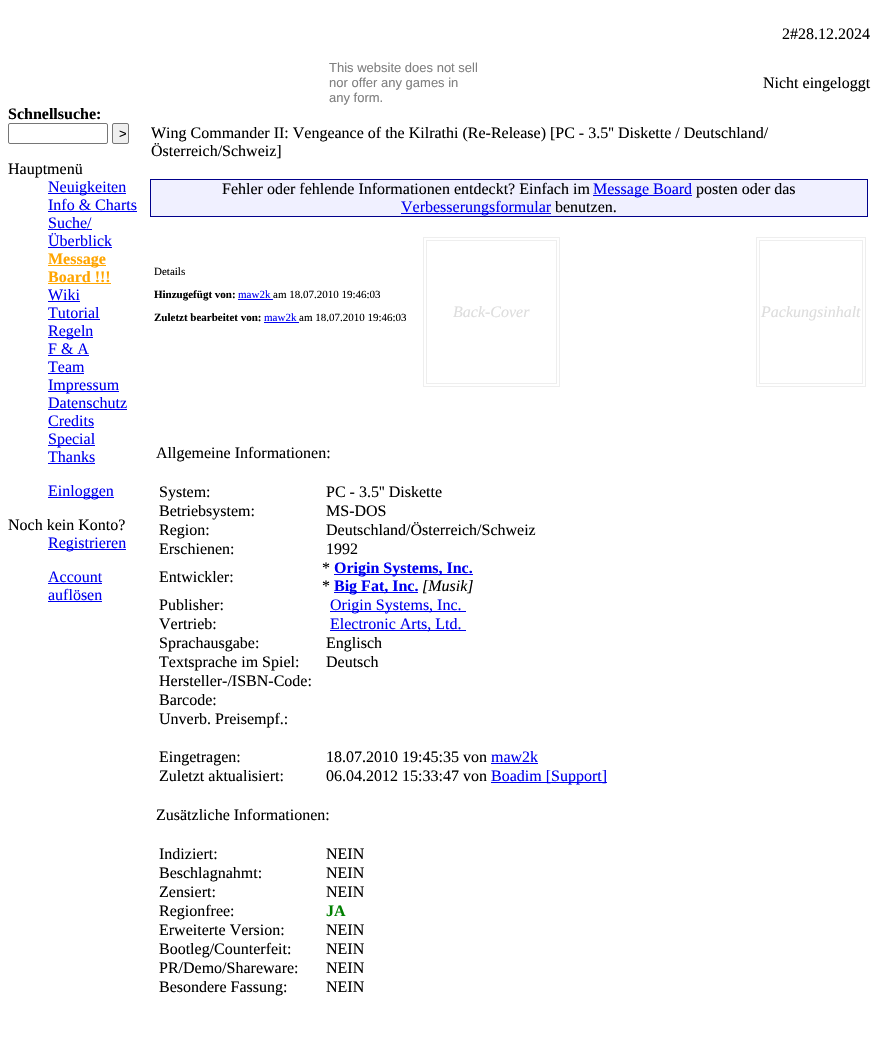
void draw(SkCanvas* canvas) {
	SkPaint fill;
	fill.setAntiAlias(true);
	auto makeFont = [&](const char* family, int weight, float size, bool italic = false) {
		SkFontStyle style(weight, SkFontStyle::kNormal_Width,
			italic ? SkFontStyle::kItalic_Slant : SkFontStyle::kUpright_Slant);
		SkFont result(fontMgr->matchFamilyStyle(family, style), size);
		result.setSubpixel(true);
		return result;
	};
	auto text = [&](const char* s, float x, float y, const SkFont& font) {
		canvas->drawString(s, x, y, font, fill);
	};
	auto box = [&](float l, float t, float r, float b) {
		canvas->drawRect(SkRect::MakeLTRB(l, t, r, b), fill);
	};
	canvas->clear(0xFFFFFFFF);
	fill.setStyle(SkPaint::kStroke_Style);
	fill.setStrokeWidth(1);
	fill.setColor(0xFF767676);
	canvas->drawRoundRect(SkRect::MakeLTRB(8.5f, 123.5f, 107.5f, 143.5f), 1.5f, 1.5f, fill);
	fill.setStyle(SkPaint::kFill_Style);
	fill.setColor(0xFFEFEFEF);
	canvas->drawRoundRect(SkRect::MakeLTRB(112.5f, 123.5f, 128.5f, 143.5f), 1.5f, 1.5f, fill);
	fill.setStyle(SkPaint::kStroke_Style);
	fill.setColor(0xFF767676);
	canvas->drawRoundRect(SkRect::MakeLTRB(112.5f, 123.5f, 128.5f, 143.5f), 1.5f, 1.5f, fill);
	fill.setStyle(SkPaint::kFill_Style);
	fill.setColor(0xFF0000EE);
	box(48, 193, 126, 194);
	box(48, 211, 137, 212);
	box(48, 229, 92, 230);
	box(48, 247, 112, 248);
	fill.setColor(0xFFFFA500);
	box(48, 265, 106, 266);
	box(48, 283, 111, 284);
	fill.setColor(0xFF0000EE);
	box(48, 301, 80, 302);
	box(48, 319, 100, 320);
	box(48, 337, 93, 338);
	box(48, 355, 89, 356);
	box(48, 373, 84, 374);
	box(48, 391, 119, 392);
	box(48, 409, 127, 410);
	box(48, 427, 94, 428);
	box(48, 445, 95, 446);
	box(48, 463, 95, 464);
	box(48, 497, 114, 498);
	box(48, 549, 126, 550);
	box(48, 583, 102, 584);
	box(48, 601, 102, 602);
	fill.setColor(0xFFF0F0FF);
	canvas->drawRect(SkRect::MakeLTRB(150.5f, 179.5f, 867.5f, 216.5f), fill);
	fill.setStyle(SkPaint::kStroke_Style);
	fill.setColor(0xFF00008B);
	canvas->drawRect(SkRect::MakeLTRB(150.5f, 179.5f, 867.5f, 216.5f), fill);
	fill.setStyle(SkPaint::kFill_Style);
	fill.setColor(0xFF0000EE);
	box(593, 195, 692, 196);
	box(401, 213, 551, 214);
	box(238, 299, 273, 300);
	box(264, 322, 299, 323);
	fill.setStyle(SkPaint::kStroke_Style);
	fill.setColor(0xFFEEEEEE);
	canvas->drawRect(SkRect::MakeLTRB(423.5f, 237.5f, 559.5f, 386.5f), fill);
	canvas->drawRect(SkRect::MakeLTRB(426.5f, 240.5f, 556.5f, 383.5f), fill);
	canvas->drawRect(SkRect::MakeLTRB(756.5f, 237.5f, 865.5f, 386.5f), fill);
	canvas->drawRect(SkRect::MakeLTRB(759.5f, 240.5f, 862.5f, 383.5f), fill);
	fill.setStyle(SkPaint::kFill_Style);
	fill.setColor(0xFF0000EE);
	box(334, 574, 473, 575);
	box(334, 592, 418, 593);
	box(330, 611, 466, 612);
	box(330, 630, 466, 631);
	box(491, 763, 538, 764);
	box(491, 782, 607, 783);
	auto font1 = makeFont("Liberation Serif", 400, 16);
	fill.setColor(0xFF000000);
	text("2#28.12.2024", 782, 39, font1);
	auto font2 = makeFont("Liberation Sans", 400, 13);
	fill.setColor(0xFF808080);
	text("This website does not sell", 329, 72, font2);
	text("nor offer any games in", 329, 87, font2);
	text("any form.", 329, 102, font2);
	fill.setColor(0xFF000000);
	text("Nicht eingeloggt", 763, 88, font1);
	auto font3 = makeFont("Liberation Serif", 700, 16);
	text("Schnellsuche:", 8, 119, font3);
	text(">", 119, 138, font2);
	text("Hauptmenü", 8, 174, font1);
	fill.setColor(0xFF0000EE);
	text("Neuigkeiten", 48, 192, font1);
	text("Info & Charts", 48, 210, font1);
	text("Suche/", 48, 228, font1);
	text("Überblick", 48, 246, font1);
	fill.setColor(0xFFFFA500);
	text("Message", 48, 264, font3);
	text("Board !!!", 48, 282, font3);
	fill.setColor(0xFF0000EE);
	text("Wiki", 48, 300, font1);
	text("Tutorial", 48, 318, font1);
	text("Regeln", 48, 336, font1);
	text("F & A", 48, 354, font1);
	text("Team", 48, 372, font1);
	text("Impressum", 48, 390, font1);
	text("Datenschutz", 48, 408, font1);
	text("Credits", 48, 426, font1);
	text("Special", 48, 444, font1);
	text("Thanks", 48, 462, font1);
	text("Einloggen", 48, 496, font1);
	fill.setColor(0xFF000000);
	text("Noch kein Konto?", 8, 530, font1);
	fill.setColor(0xFF0000EE);
	text("Registrieren", 48, 548, font1);
	text("Account", 48, 582, font1);
	text("auflösen", 48, 600, font1);
	fill.setColor(0xFF000000);
	text("Wing Commander II: Vengeance of the Kilrathi (Re-Release) [PC - 3.5'' Diskette / Deutschland/", 151, 138, font1);
	text("Österreich/Schweiz]", 151, 156, font1);
	text("Fehler oder fehlende Informationen entdeckt? Einfach im", 222, 194, font1);
	fill.setColor(0xFF0000EE);
	text("Message Board", 593, 194, font1);
	fill.setColor(0xFF000000);
	text("posten oder das", 696, 194, font1);
	fill.setColor(0xFF0000EE);
	text("Verbesserungsformular", 401, 212, font1);
	fill.setColor(0xFF000000);
	text("benutzen.", 555, 212, font1);
	auto font4 = makeFont("Liberation Serif", 400, 11);
	text("Details", 154, 275, font4);
	auto font5 = makeFont("Liberation Serif", 700, 11);
	text("Hinzugefügt von:", 154, 298, font5);
	fill.setColor(0xFF0000EE);
	text("maw2k", 238, 298, font4);
	fill.setColor(0xFF000000);
	text("am 18.07.2010 19:46:03", 273, 298, font4);
	text("Zuletzt bearbeitet von:", 154, 321, font5);
	fill.setColor(0xFF0000EE);
	text("maw2k", 264, 321, font4);
	fill.setColor(0xFF000000);
	text("am 18.07.2010 19:46:03", 299, 321, font4);
	auto font6 = makeFont("Liberation Serif", 400, 16, true);
	fill.setColor(0xFFDDDDDD);
	text("Back-Cover", 453, 317, font6);
	text("Packungsinhalt", 761, 317, font6);
	fill.setColor(0xFF000000);
	text("Allgemeine Informationen:", 156, 458, font1);
	text("System:", 159, 497, font1);
	text("PC - 3.5'' Diskette", 326, 497, font1);
	text("Betriebsystem:", 159, 516, font1);
	text("MS-DOS", 326, 516, font1);
	text("Region:", 159, 535, font1);
	text("Deutschland/Österreich/Schweiz", 326, 535, font1);
	text("Erschienen:", 159, 554, font1);
	text("1992", 326, 554, font1);
	text("Entwickler:", 159, 582, font1);
	text("*", 322, 573, font1);
	fill.setColor(0xFF0000EE);
	text("Origin Systems, Inc.", 334, 573, font3);
	fill.setColor(0xFF000000);
	text("*", 322, 591, font1);
	fill.setColor(0xFF0000EE);
	text("Big Fat, Inc.", 334, 591, font3);
	fill.setColor(0xFF000000);
	text("[Musik]", 422, 591, font6);
	text("Publisher:", 159, 610, font1);
	fill.setColor(0xFF0000EE);
	text("Origin Systems, Inc.", 330, 610, font1);
	fill.setColor(0xFF000000);
	text("Vertrieb:", 159, 629, font1);
	fill.setColor(0xFF0000EE);
	text("Electronic Arts, Ltd.", 330, 629, font1);
	fill.setColor(0xFF000000);
	text("Sprachausgabe:", 159, 648, font1);
	text("Englisch", 326, 648, font1);
	text("Textsprache im Spiel:", 159, 667, font1);
	text("Deutsch", 326, 667, font1);
	text("Hersteller-/ISBN-Code:", 159, 686, font1);
	text("Barcode:", 159, 705, font1);
	text("Unverb. Preisempf.:", 159, 724, font1);
	text("Eingetragen:", 159, 762, font1);
	text("18.07.2010 19:45:35 von", 326, 762, font1);
	fill.setColor(0xFF0000EE);
	text("maw2k", 491, 762, font1);
	fill.setColor(0xFF000000);
	text("Zuletzt aktualisiert:", 159, 781, font1);
	text("06.04.2012 15:33:47 von", 326, 781, font1);
	fill.setColor(0xFF0000EE);
	text("Boadim [Support]", 491, 781, font1);
	fill.setColor(0xFF000000);
	text("Zusätzliche Informationen:", 156, 820, font1);
	text("Indiziert:", 159, 859, font1);
	text("NEIN", 326, 859, font1);
	text("Beschlagnahmt:", 159, 878, font1);
	text("NEIN", 326, 878, font1);
	text("Zensiert:", 159, 897, font1);
	text("NEIN", 326, 897, font1);
	text("Regionfree:", 159, 916, font1);
	fill.setColor(0xFF008000);
	text("JA", 326, 916, font3);
	fill.setColor(0xFF000000);
	text("Erweiterte Version:", 159, 935, font1);
	text("NEIN", 326, 935, font1);
	text("Bootleg/Counterfeit:", 159, 954, font1);
	text("NEIN", 326, 954, font1);
	text("PR/Demo/Shareware:", 159, 973, font1);
	text("NEIN", 326, 973, font1);
	text("Besondere Fassung:", 159, 992, font1);
	text("NEIN", 326, 992, font1);
}
